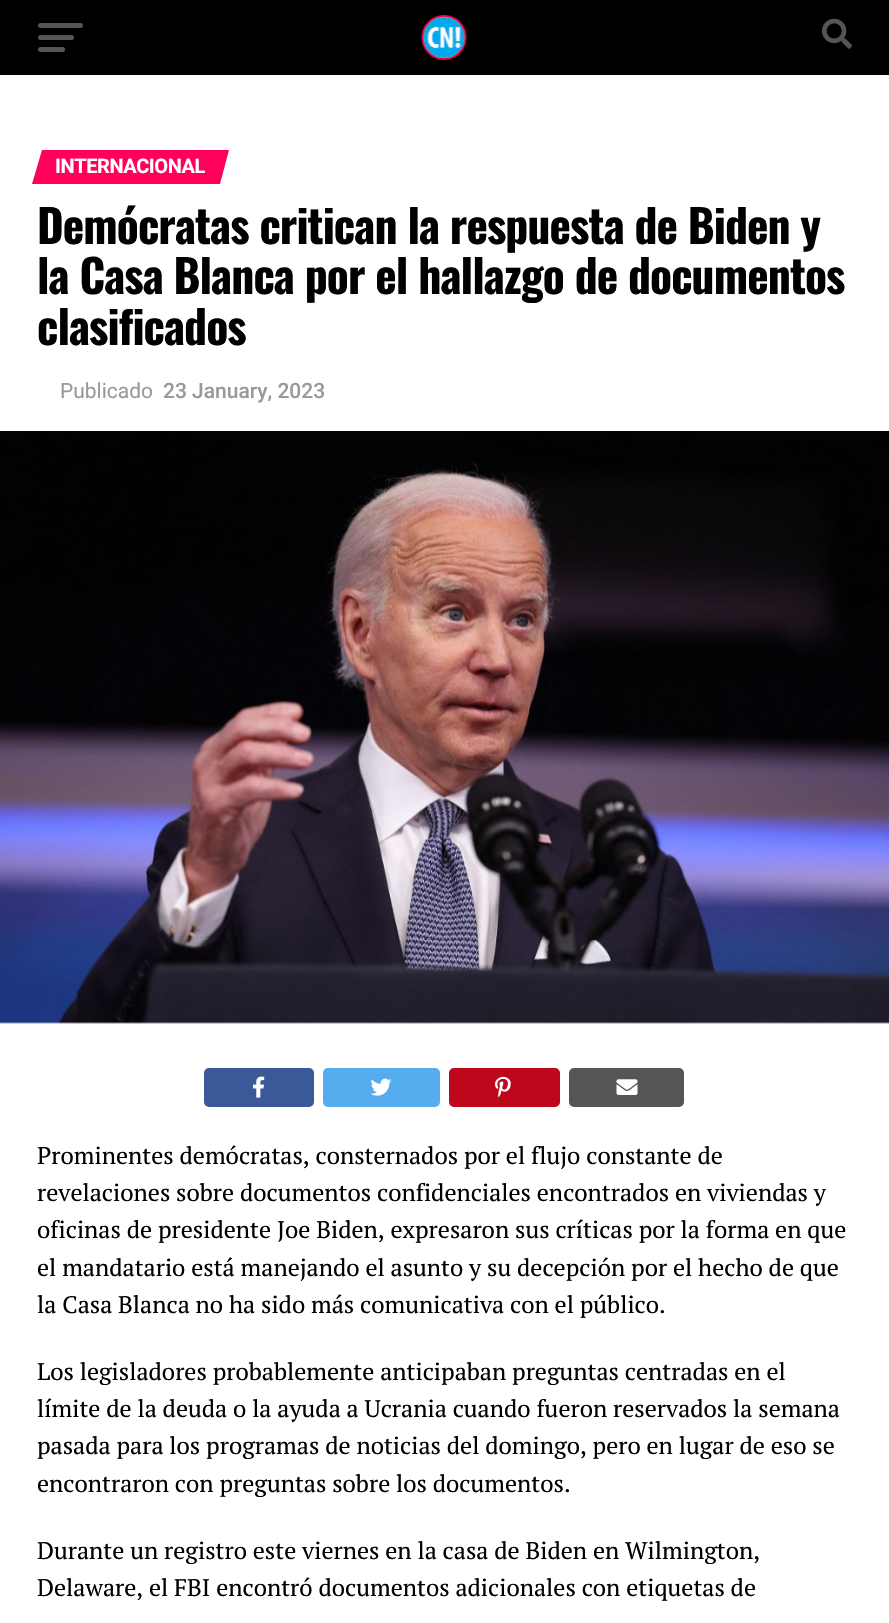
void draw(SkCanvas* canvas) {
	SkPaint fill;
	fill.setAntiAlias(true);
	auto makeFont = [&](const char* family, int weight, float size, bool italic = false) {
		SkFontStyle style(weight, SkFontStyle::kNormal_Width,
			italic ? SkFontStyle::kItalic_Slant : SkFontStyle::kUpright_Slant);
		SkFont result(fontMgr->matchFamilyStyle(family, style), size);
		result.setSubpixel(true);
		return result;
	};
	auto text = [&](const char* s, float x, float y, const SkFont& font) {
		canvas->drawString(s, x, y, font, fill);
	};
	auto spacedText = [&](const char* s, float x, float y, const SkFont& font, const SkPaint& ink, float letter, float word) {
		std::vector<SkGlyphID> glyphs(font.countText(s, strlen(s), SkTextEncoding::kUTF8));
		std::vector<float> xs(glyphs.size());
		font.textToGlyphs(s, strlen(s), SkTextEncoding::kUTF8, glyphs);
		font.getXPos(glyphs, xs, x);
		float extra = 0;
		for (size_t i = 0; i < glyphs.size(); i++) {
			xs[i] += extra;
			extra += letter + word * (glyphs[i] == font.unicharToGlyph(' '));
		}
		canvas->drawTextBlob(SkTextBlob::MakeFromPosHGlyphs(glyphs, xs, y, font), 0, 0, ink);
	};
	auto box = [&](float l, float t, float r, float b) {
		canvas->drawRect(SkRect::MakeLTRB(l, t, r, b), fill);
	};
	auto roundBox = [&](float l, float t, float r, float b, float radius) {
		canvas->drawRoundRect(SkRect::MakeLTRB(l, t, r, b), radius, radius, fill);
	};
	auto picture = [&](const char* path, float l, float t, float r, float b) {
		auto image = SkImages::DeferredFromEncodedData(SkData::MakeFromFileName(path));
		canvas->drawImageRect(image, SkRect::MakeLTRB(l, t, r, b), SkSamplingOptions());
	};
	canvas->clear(0xFFFFFFFF);
	fill.setColor(0xFF000000);
	box(0, 0, 889, 75);
	fill.setColor(0xFF555555);
	roundBox(38, 23, 83, 28, 2.5f);
	roundBox(38, 35, 74, 40, 2.5f);
	roundBox(38, 47, 65, 52, 2.5f);
	picture("image0.png", 421, 15, 467, 60);
	picture("image1.png", 822, 18, 852, 49);
	fill.setColor(0xFFFF005B);
	canvas->drawPath(SkPathBuilder().moveTo(42, 150).lineTo(229, 150).lineTo(220, 184).lineTo(32, 184).close().detach(), fill);
	picture("image2.png", 0, 431, 889, 1024);
	fill.setColor(0xFF3B5998);
	roundBox(204, 1068, 314, 1107, 5);
	picture("image3.png", 252, 1076, 265, 1098);
	fill.setColor(0xFF55ACEE);
	roundBox(323, 1068, 440, 1107, 5);
	picture("image4.png", 370, 1078, 392, 1096);
	fill.setColor(0xFFBD081C);
	roundBox(449, 1068, 560, 1107, 5);
	picture("image5.png", 495, 1076, 511, 1098);
	fill.setColor(0xFF555555);
	roundBox(569, 1068, 684, 1107, 5);
	picture("image6.png", 616, 1079, 638, 1095);
	auto font1 = makeFont("Roboto", 700, 20);
	fill.setColor(0xFFFFFFFF);
	spacedText("INTERNACIONAL", 55, 173, font1, fill, -0.4f, 0);
	auto font2 = makeFont("Oswald", 700, 45.6f);
	fill.setColor(0xFF000000);
	spacedText("Demócratas critican la respuesta de Biden y", 37, 244, font2, fill, -0.9f, 0);
	spacedText("la Casa Blanca por el hallazgo de documentos", 37, 294, font2, fill, -0.9f, 0);
	spacedText("clasificados", 37, 345, font2, fill, -0.9f, 0);
	auto font3 = makeFont("Roboto", 400, 21);
	fill.setColor(0xFF999999);
	text("Publicado", 60, 398, font3);
	auto font4 = makeFont("Roboto", 500, 21);
	text("23 January, 2023", 163, 398, font4);
	auto font5 = makeFont("PT Serif", 400, 24);
	fill.setColor(0xFF000000);
	text("Prominentes demócratas, consternados por el flujo constante de", 37, 1164, font5);
	text("revelaciones sobre documentos confidenciales encontrados en viviendas y", 37, 1201, font5);
	text("oficinas de presidente Joe Biden, expresaron sus críticas por la forma en que", 37, 1238, font5);
	text("el mandatario está manejando el asunto y su decepción por el hecho de que", 37, 1276, font5);
	text("la Casa Blanca no ha sido más comunicativa con el público.", 37, 1313, font5);
	text("Los legisladores probablemente anticipaban preguntas centradas en el", 37, 1380, font5);
	text("límite de la deuda o la ayuda a Ucrania cuando fueron reservados la semana", 37, 1417, font5);
	text("pasada para los programas de noticias del domingo, pero en lugar de eso se", 37, 1454, font5);
	text("encontraron con preguntas sobre los documentos.", 37, 1492, font5);
	text("Durante un registro este viernes en la casa de Biden en Wilmington,", 37, 1559, font5);
	text("Delaware, el FBI encontró documentos adicionales con etiquetas de", 37, 1596, font5);
}
